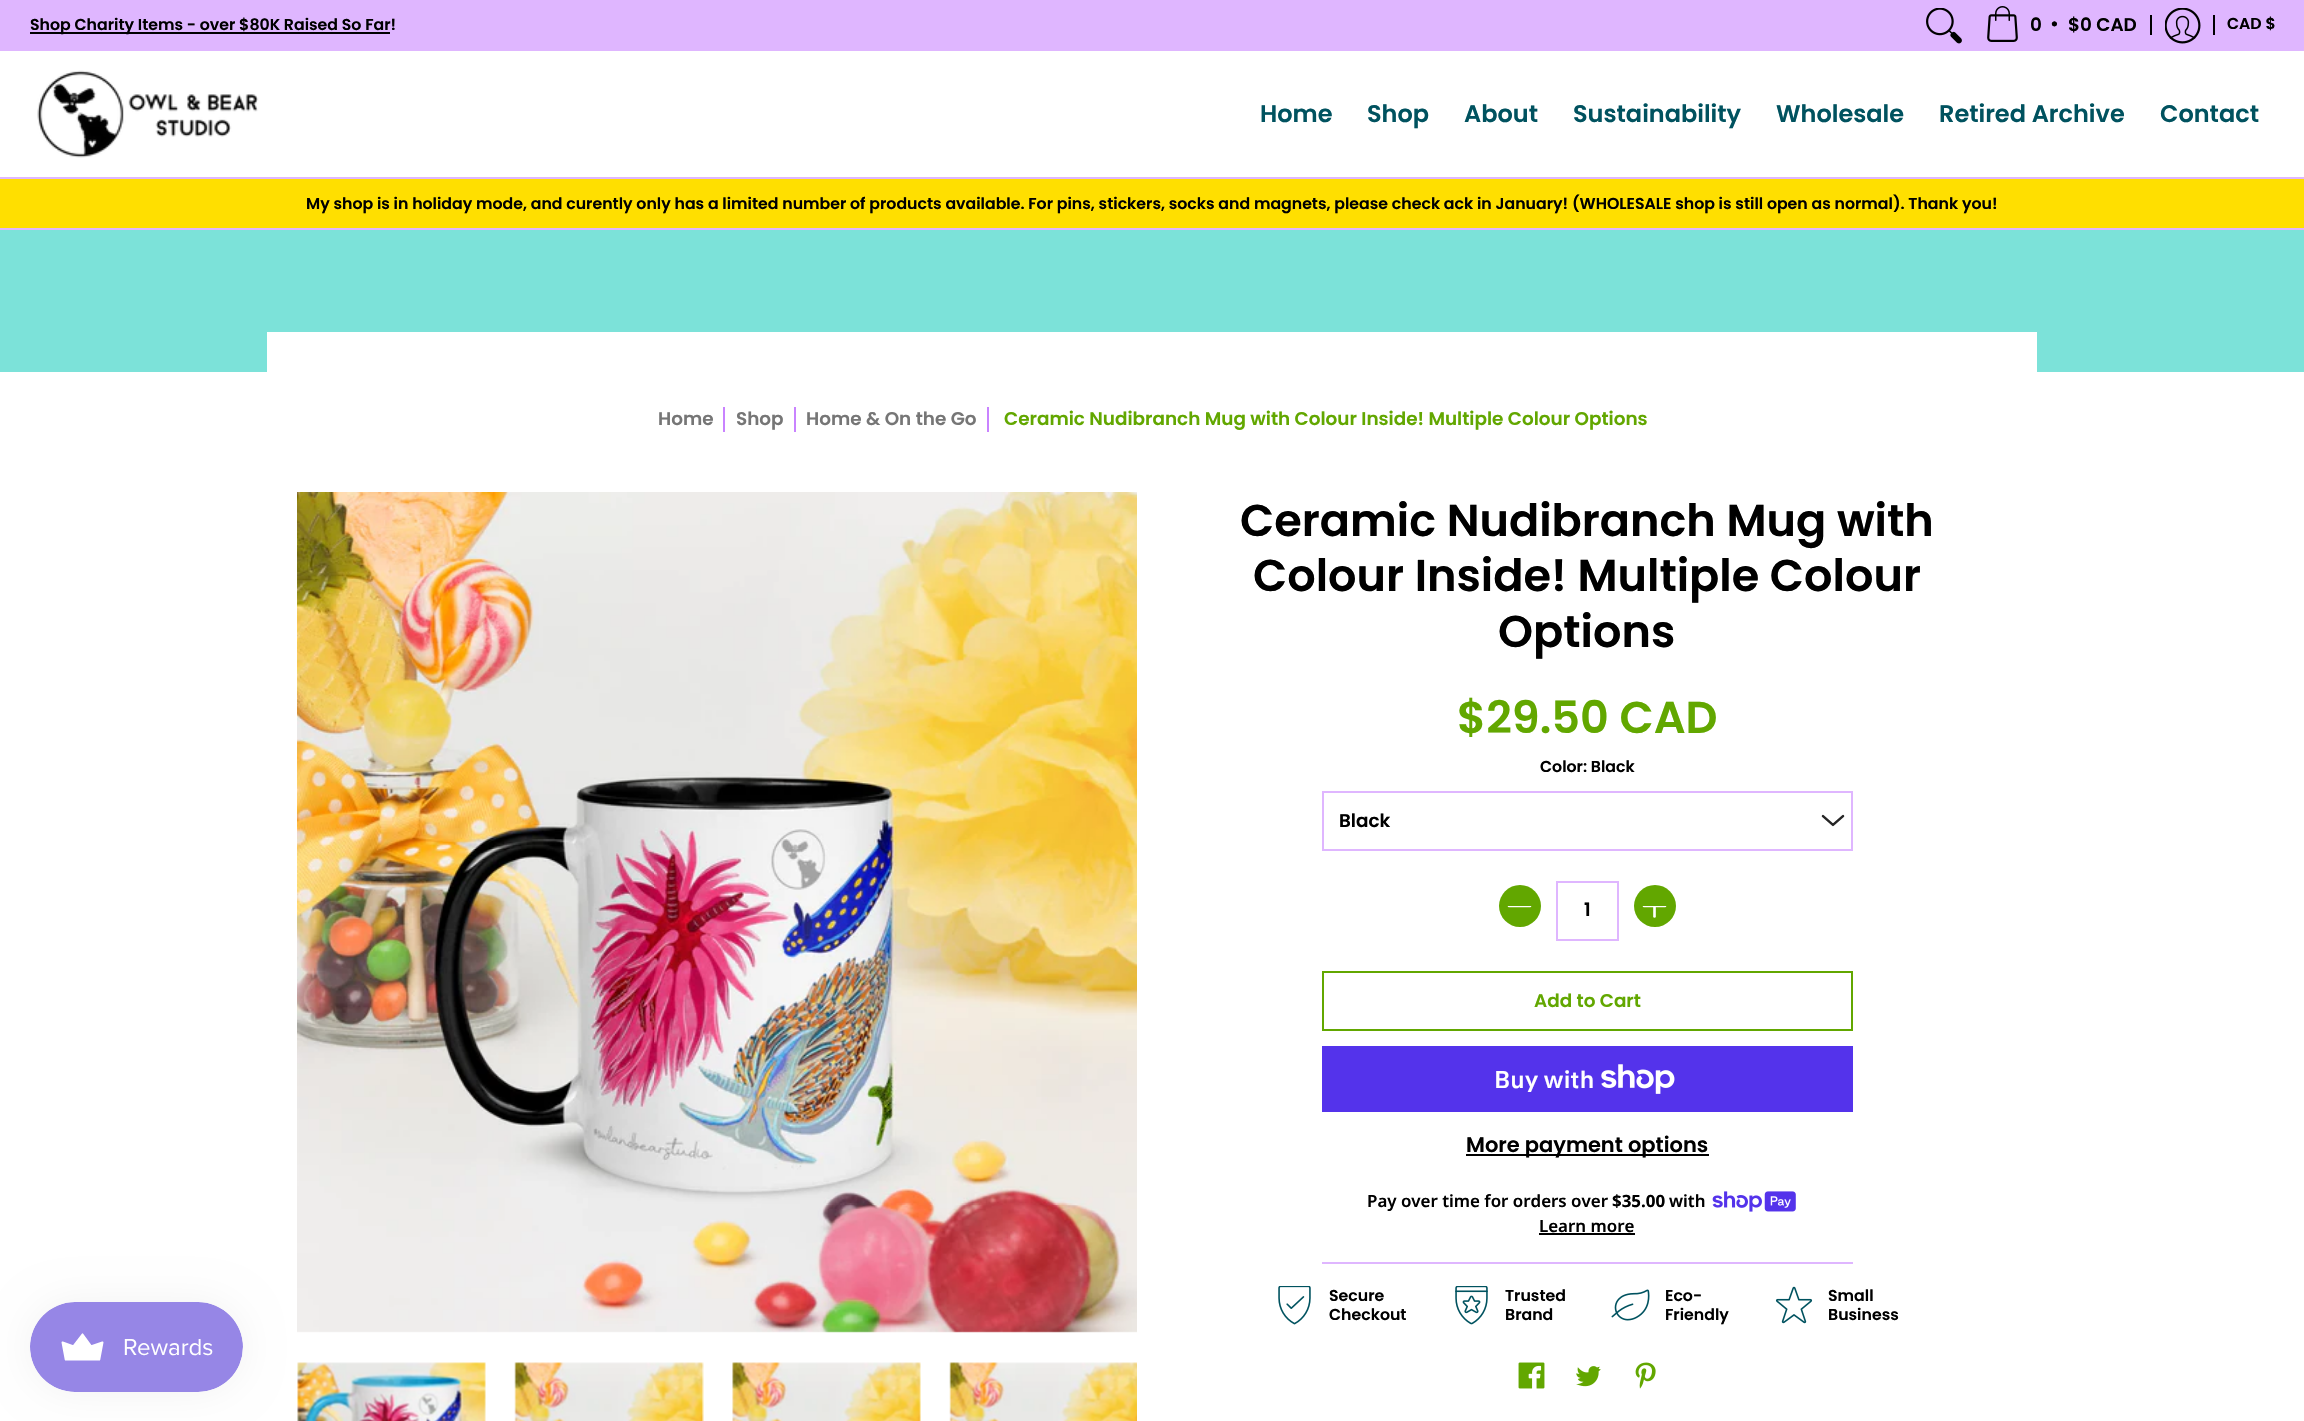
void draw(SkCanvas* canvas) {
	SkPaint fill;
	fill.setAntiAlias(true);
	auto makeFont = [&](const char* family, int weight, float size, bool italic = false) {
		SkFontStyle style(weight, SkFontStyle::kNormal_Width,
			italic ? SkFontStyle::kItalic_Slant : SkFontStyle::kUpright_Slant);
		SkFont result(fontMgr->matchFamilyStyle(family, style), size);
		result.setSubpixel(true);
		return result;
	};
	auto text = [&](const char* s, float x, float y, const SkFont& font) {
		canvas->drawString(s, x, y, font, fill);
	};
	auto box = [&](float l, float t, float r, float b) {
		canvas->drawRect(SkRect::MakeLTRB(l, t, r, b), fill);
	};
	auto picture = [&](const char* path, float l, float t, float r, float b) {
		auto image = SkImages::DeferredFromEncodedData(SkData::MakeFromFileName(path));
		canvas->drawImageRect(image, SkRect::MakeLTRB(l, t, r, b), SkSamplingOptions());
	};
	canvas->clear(0xFFFFFFFF);
	fill.setColor(0xFFDFB6FF);
	box(0, 0, 2304, 51);
	fill.setColor(0xFF000000);
	box(30, 32, 390, 34);
	picture("image0.png", 1926, 8, 1962, 44);
	picture("image1.png", 1987, 6, 2018, 42);
	box(2150, 15, 2152, 35);
	picture("image2.png", 2165, 8, 2201, 44);
	box(2213, 15, 2215, 35);
	fill.setColor(0xFFDFB6FF);
	box(0, 177, 2304, 179);
	picture("image3.png", 37, 70, 259, 158);
	fill.setColor(0xFFFFDF00);
	box(0, 179, 2304, 228);
	fill.setColor(0xFFDFB6FF);
	box(0, 228, 2304, 230);
	picture("image5.png", 297, 492, 1137, 1333);
	picture("image6.png", 297, 1362, 486, 1421);
	fill.setColor(0x0D000000);
	fill.setMaskFilter(SkMaskFilter::MakeBlur(kNormal_SkBlurStyle, 19));
	canvas->drawRoundRect(SkRect::MakeLTRB(30, 1302, 243, 1392), 45, 45, fill);
	fill.setMaskFilter(nullptr);
	picture("image4.png", 30, 1302, 243, 1392);
	fill.setColor(0xFF7CE2D9);
	box(0, 230, 2304, 372);
	fill.setColor(0xFFFFFFFF);
	box(267, 332, 2037, 372);
	fill.setColor(0xFFC983FF);
	box(723, 407, 725, 432);
	box(794, 407, 796, 432);
	box(987, 407, 989, 432);
	picture("image7.png", 514, 1362, 704, 1421);
	picture("image8.png", 732, 1362, 921, 1421);
	picture("image9.png", 949, 1362, 1137, 1421);
	fill.setStyle(SkPaint::kStroke_Style);
	fill.setStrokeWidth(2);
	fill.setColor(0xFFDFB6FF);
	canvas->drawRect(SkRect::MakeLTRB(1323, 792, 1852, 850), fill);
	picture("image10.png", 1821, 814, 1845, 827);
	fill.setStyle(SkPaint::kFill_Style);
	fill.setColor(0xFF62A700);
	canvas->drawCircle(1520, 906, 21, fill);
	picture("image11.png", 1507, 906, 1532, 908);
	fill.setStyle(SkPaint::kStroke_Style);
	fill.setColor(0xFFDFB6FF);
	canvas->drawRect(SkRect::MakeLTRB(1557, 882, 1618, 940), fill);
	fill.setStyle(SkPaint::kFill_Style);
	fill.setColor(0xFF62A700);
	canvas->drawCircle(1655, 906, 21, fill);
	picture("image12.png", 1642, 906, 1667, 918);
	fill.setStyle(SkPaint::kStroke_Style);
	canvas->drawRect(SkRect::MakeLTRB(1323, 972, 1852, 1030), fill);
	fill.setStyle(SkPaint::kFill_Style);
	fill.setColor(0xFF5433EB);
	box(1322, 1046, 1853, 1112);
	picture("image13.png", 1601, 1064, 1675, 1094);
	fill.setColor(0xFF000000);
	box(1466, 1154, 1709, 1156);
	fill.setColor(0xFFDFB6FF);
	box(1322, 1262, 1853, 1264);
	picture("image14.png", 1712, 1191, 1796, 1212);
	fill.setColor(0xFF000000);
	box(1539, 1233, 1635, 1235);
	picture("image15.png", 1278, 1286, 1311, 1325);
	picture("image16.png", 1455, 1286, 1488, 1325);
	picture("image17.png", 1611, 1289, 1650, 1321);
	picture("image18.png", 1775, 1286, 1813, 1324);
	picture("image19.png", 1518, 1362, 1545, 1389);
	picture("image20.png", 1576, 1366, 1601, 1387);
	picture("image21.png", 1635, 1362, 1656, 1389);
	auto font1 = makeFont("Poppins", 600, 15.75f);
	text("Shop Charity Items - over $80K Raised So Far!", 30, 30, font1);
	auto font2 = makeFont("Poppins", 600, 18.4f);
	text("0", 2030, 31, font2);
	text("•", 2050, 30, font2);
	text("$0 CAD", 2068, 31, font2);
	text("CAD $", 2227, 29, font1);
	auto font3 = makeFont("Poppins", 600, 24);
	fill.setColor(0xFF00525F);
	text("Home", 1260, 122, font3);
	text("Shop", 1367, 122, font3);
	text("About", 1464, 122, font3);
	text("Sustainability", 1573, 122, font3);
	text("Wholesale", 1776, 122, font3);
	text("Retired Archive", 1939, 122, font3);
	text("Contact", 2160, 122, font3);
	fill.setColor(0xFF000000);
	text("My shop is in holiday mode, and curently only has a limited number of products available. For pins, stickers, socks and magnets, please check ack in January! (WHOLESALE shop is still open as normal). Thank you!", 306, 209, font1);
	fill.setColor(0xFF767676);
	text("Home", 658, 425, font2);
	text("Shop", 736, 425, font2);
	text("Home & On the Go", 806, 425, font2);
	fill.setColor(0xFF62A700);
	text("Ceramic Nudibranch Mug with Colour Inside! Multiple Colour Options", 1004, 425, font2);
	auto font4 = makeFont("Poppins", 600, 44.6f);
	fill.setColor(0xFF000000);
	text("Ceramic Nudibranch Mug with", 1240, 536, font4);
	text("Colour Inside! Multiple Colour", 1253, 591, font4);
	text("Options", 1498, 647, font4);
	fill.setColor(0xFF62A700);
	text("$29.50 CAD", 1457, 733, font4);
	fill.setColor(0xFF000000);
	text("Color: Black", 1540, 772, font1);
	text("Black", 1339, 827, font2);
	text("1", 1584, 916, font2);
	fill.setColor(0xFF62A700);
	text("Add to Cart", 1534, 1007, font2);
	auto font5 = makeFont("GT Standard", 600, 24);
	fill.setColor(0xFFFFFFFF);
	text("Buy with", 1494, 1088, font5);
	auto font6 = makeFont("Poppins", 600, 21);
	fill.setColor(0xFF000000);
	text("More payment options", 1466, 1152, font6);
	auto font7 = makeFont("Noto Sans", 600, 16.9f);
	text("Pay over time for orders over", 1367, 1207, font7);
	auto font8 = makeFont("Noto Sans", 700, 16.9f);
	text("$35.00", 1612, 1207, font8);
	text("with", 1669, 1207, font7);
	text("Learn more", 1539, 1232, font7);
	text("Secure", 1329, 1301, font1);
	text("Checkout", 1329, 1320, font1);
	text("Trusted", 1505, 1301, font1);
	text("Brand", 1505, 1320, font1);
	text("Eco-", 1665, 1301, font1);
	text("Friendly", 1665, 1320, font1);
	text("Small", 1828, 1301, font1);
	text("Business", 1828, 1320, font1);
}
